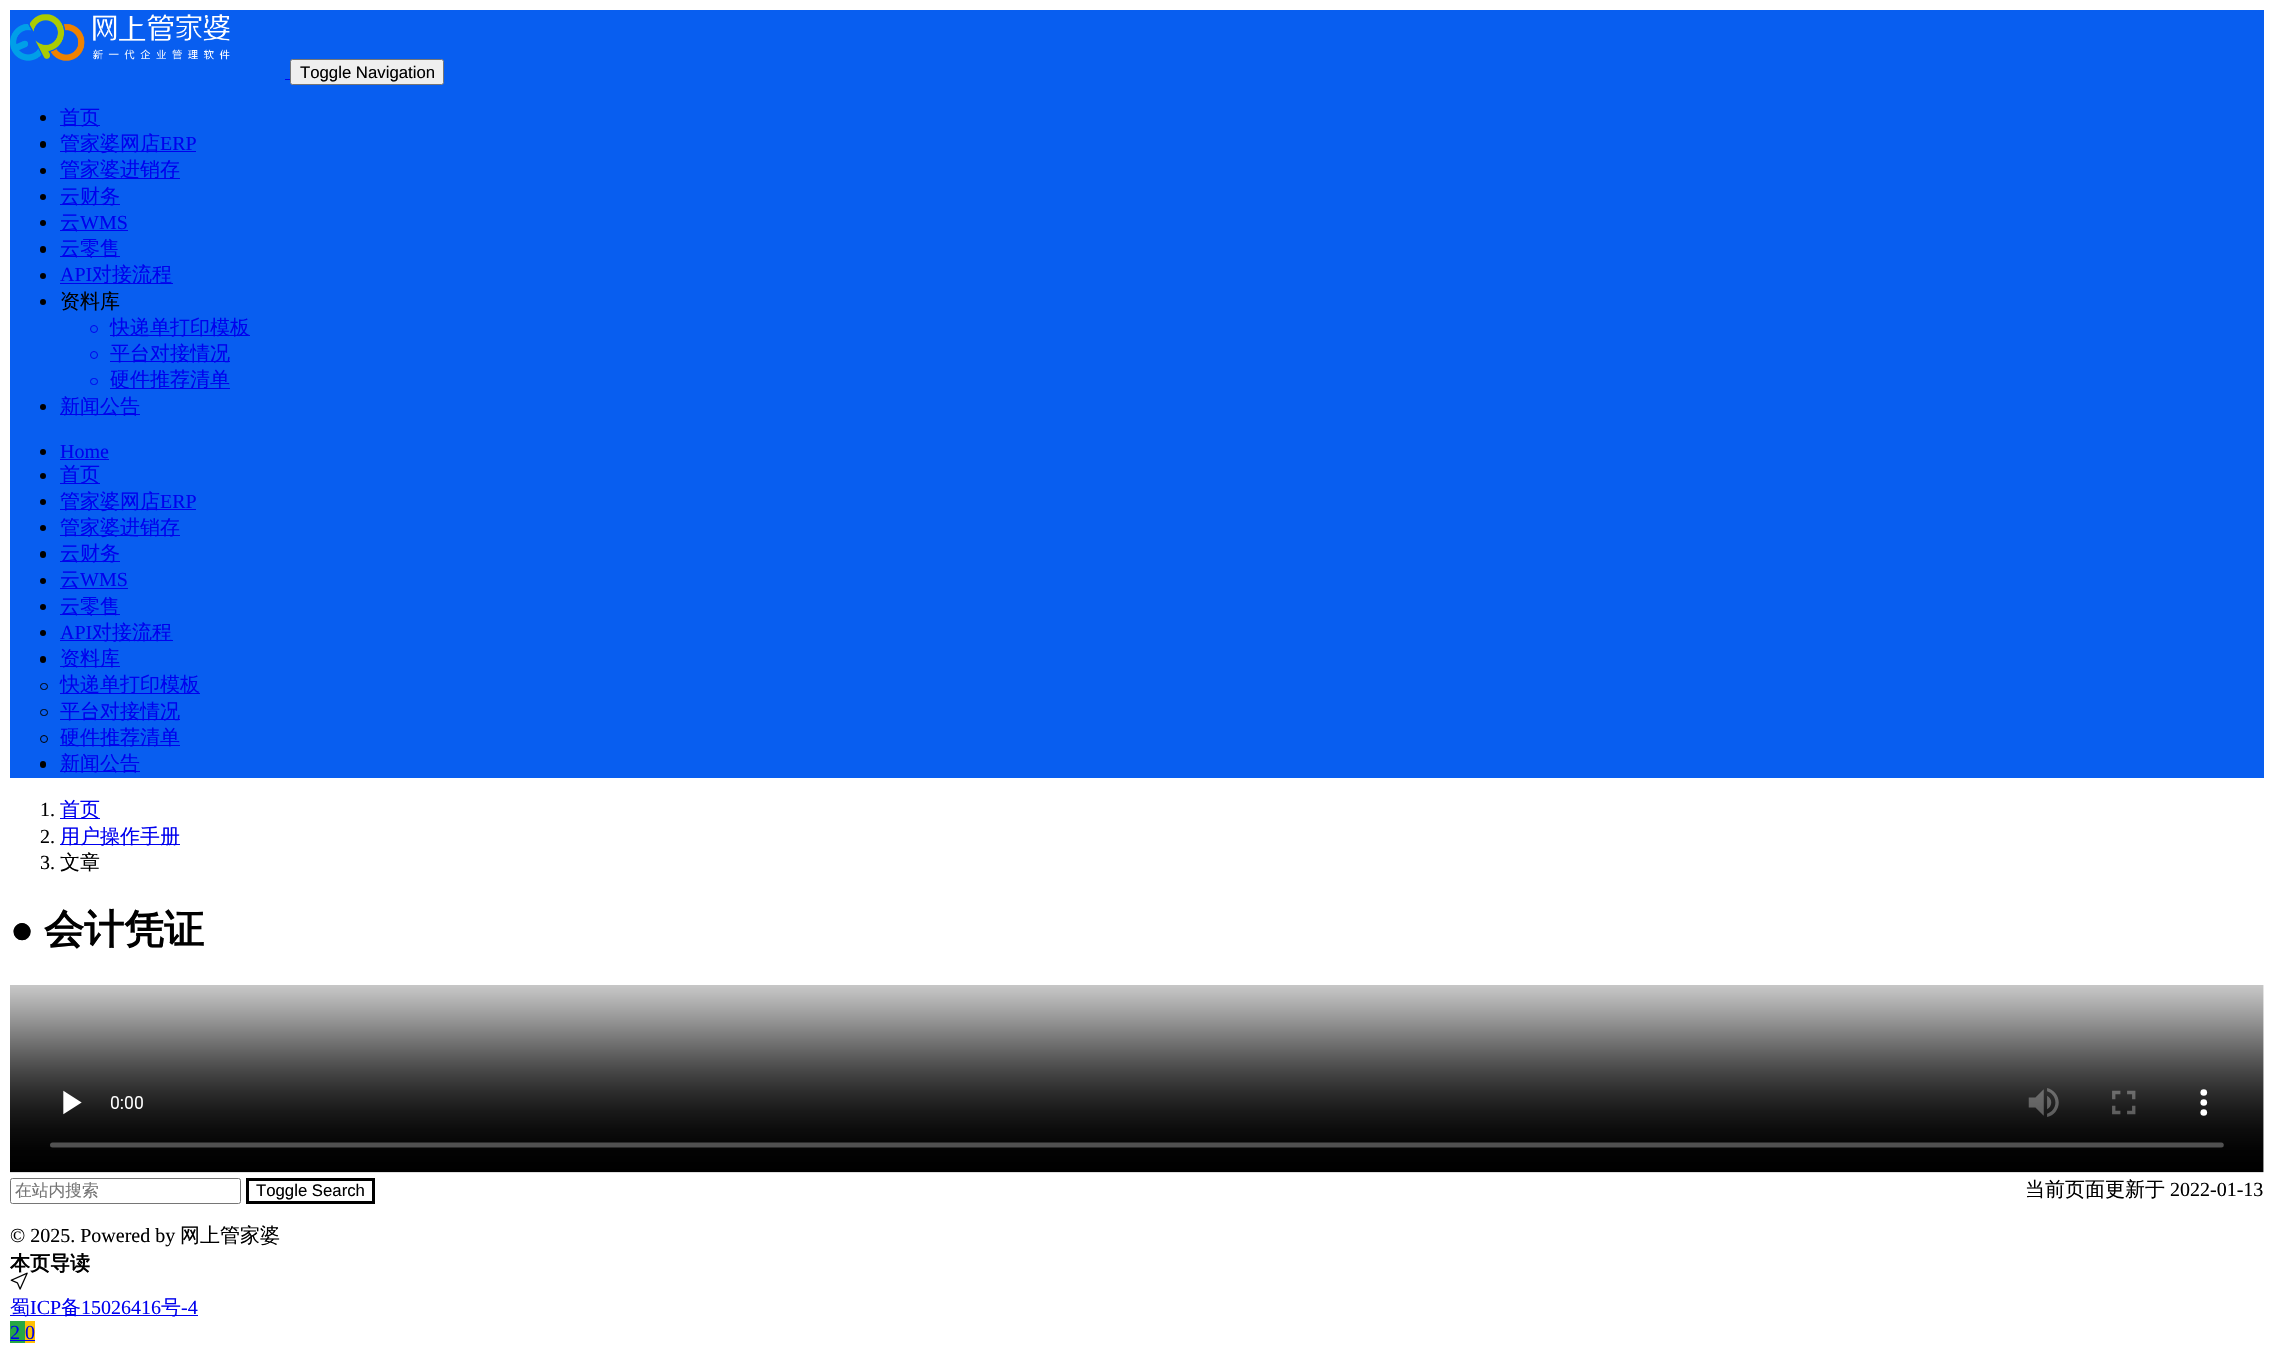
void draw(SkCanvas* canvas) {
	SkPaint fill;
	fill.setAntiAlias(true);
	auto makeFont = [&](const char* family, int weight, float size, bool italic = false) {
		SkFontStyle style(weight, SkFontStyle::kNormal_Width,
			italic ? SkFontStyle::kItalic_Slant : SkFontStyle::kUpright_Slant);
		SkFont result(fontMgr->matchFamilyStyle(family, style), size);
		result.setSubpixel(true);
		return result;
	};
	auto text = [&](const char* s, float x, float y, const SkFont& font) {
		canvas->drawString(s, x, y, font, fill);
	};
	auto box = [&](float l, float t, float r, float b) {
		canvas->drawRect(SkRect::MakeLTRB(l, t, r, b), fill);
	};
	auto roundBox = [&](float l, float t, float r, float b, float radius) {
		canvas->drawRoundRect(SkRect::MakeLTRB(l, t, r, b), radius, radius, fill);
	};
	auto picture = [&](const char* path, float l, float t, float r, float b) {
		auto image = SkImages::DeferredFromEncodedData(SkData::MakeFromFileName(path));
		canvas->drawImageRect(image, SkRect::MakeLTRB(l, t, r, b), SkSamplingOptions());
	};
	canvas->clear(0xFFFFFFFF);
	fill.setColor(0xFF085EF0);
	box(10, 10, 2264, 778);
	picture("image0.png", 10, 14, 230, 61);
	fill.setColor(0xFF0000EE);
	box(285, 79, 290, 80);
	fill.setColor(0xFFEFEFEF);
	canvas->drawRoundRect(SkRect::MakeLTRB(290.5f, 59.5f, 443.5f, 84.5f), 2, 2, fill);
	fill.setStyle(SkPaint::kStroke_Style);
	fill.setStrokeWidth(1);
	fill.setColor(0xFF767676);
	canvas->drawRoundRect(SkRect::MakeLTRB(290.5f, 59.5f, 443.5f, 84.5f), 2, 2, fill);
	fill.setStyle(SkPaint::kFill_Style);
	fill.setColor(0xFF000000);
	canvas->drawCircle(43, 118, 3, fill);
	fill.setColor(0xFF0000EE);
	box(60, 125, 100, 126);
	fill.setColor(0xFF000000);
	roundBox(40, 141, 46, 148, 3);
	fill.setColor(0xFF0000EE);
	box(60, 151, 196, 152);
	fill.setColor(0xFF000000);
	canvas->drawCircle(43, 171, 3, fill);
	fill.setColor(0xFF0000EE);
	box(60, 178, 180, 179);
	fill.setColor(0xFF000000);
	canvas->drawCircle(43, 197, 3, fill);
	fill.setColor(0xFF0000EE);
	box(60, 204, 120, 205);
	fill.setColor(0xFF000000);
	canvas->drawCircle(43, 223, 3, fill);
	fill.setColor(0xFF0000EE);
	box(60, 230, 128, 231);
	fill.setColor(0xFF000000);
	roundBox(40, 246, 46, 253, 3);
	fill.setColor(0xFF0000EE);
	box(60, 256, 120, 257);
	fill.setColor(0xFF000000);
	canvas->drawCircle(43, 276, 3, fill);
	fill.setColor(0xFF0000EE);
	box(60, 283, 173, 284);
	fill.setColor(0xFF000000);
	canvas->drawCircle(43, 302, 3, fill);
	fill.setStyle(SkPaint::kStroke_Style);
	fill.setColor(0xFF0000EE);
	canvas->drawCircle(94, 329, 3.5f, fill);
	fill.setStyle(SkPaint::kFill_Style);
	box(110, 335, 250, 336);
	fill.setStyle(SkPaint::kStroke_Style);
	canvas->drawCircle(94, 355, 3.5f, fill);
	fill.setStyle(SkPaint::kFill_Style);
	box(110, 361, 230, 362);
	fill.setStyle(SkPaint::kStroke_Style);
	canvas->drawRoundRect(SkRect::MakeLTRB(90.5f, 378.5f, 97.5f, 384.5f), 3, 3, fill);
	fill.setStyle(SkPaint::kFill_Style);
	box(110, 388, 230, 389);
	fill.setColor(0xFF000000);
	canvas->drawCircle(43, 407, 3, fill);
	fill.setColor(0xFF0000EE);
	box(60, 414, 140, 415);
	fill.setColor(0xFF000000);
	canvas->drawCircle(43, 452, 3, fill);
	fill.setColor(0xFF0000EE);
	box(60, 459, 109, 460);
	fill.setColor(0xFF000000);
	canvas->drawCircle(43, 476, 3, fill);
	fill.setColor(0xFF0000EE);
	box(60, 483, 100, 484);
	fill.setColor(0xFF000000);
	canvas->drawCircle(43, 502, 3, fill);
	fill.setColor(0xFF0000EE);
	box(60, 509, 196, 510);
	fill.setColor(0xFF000000);
	canvas->drawCircle(43, 528, 3, fill);
	fill.setColor(0xFF0000EE);
	box(60, 535, 180, 536);
	fill.setColor(0xFF000000);
	roundBox(40, 551, 46, 558, 3);
	fill.setColor(0xFF0000EE);
	box(60, 561, 120, 562);
	fill.setColor(0xFF000000);
	canvas->drawCircle(43, 581, 3, fill);
	fill.setColor(0xFF0000EE);
	box(60, 588, 128, 589);
	fill.setColor(0xFF000000);
	canvas->drawCircle(43, 607, 3, fill);
	fill.setColor(0xFF0000EE);
	box(60, 614, 120, 615);
	fill.setColor(0xFF000000);
	canvas->drawCircle(43, 633, 3, fill);
	fill.setColor(0xFF0000EE);
	box(60, 640, 173, 641);
	fill.setColor(0xFF000000);
	roundBox(40, 656, 46, 663, 3);
	fill.setColor(0xFF0000EE);
	box(60, 666, 120, 667);
	fill.setStyle(SkPaint::kStroke_Style);
	fill.setColor(0xFF000000);
	canvas->drawRoundRect(SkRect::MakeLTRB(40.5f, 683.5f, 47.5f, 689.5f), 3, 3, fill);
	fill.setStyle(SkPaint::kFill_Style);
	fill.setColor(0xFF0000EE);
	box(60, 693, 200, 694);
	fill.setStyle(SkPaint::kStroke_Style);
	fill.setColor(0xFF000000);
	canvas->drawRoundRect(SkRect::MakeLTRB(40.5f, 709.5f, 47.5f, 715.5f), 3, 3, fill);
	fill.setStyle(SkPaint::kFill_Style);
	fill.setColor(0xFF0000EE);
	box(60, 719, 180, 720);
	fill.setStyle(SkPaint::kStroke_Style);
	fill.setColor(0xFF000000);
	canvas->drawCircle(44, 739, 3.5f, fill);
	fill.setStyle(SkPaint::kFill_Style);
	fill.setColor(0xFF0000EE);
	box(60, 745, 180, 746);
	fill.setColor(0xFF000000);
	roundBox(40, 761, 46, 768, 3);
	fill.setColor(0xFF0000EE);
	box(60, 771, 140, 772);
	box(60, 818, 100, 819);
	box(60, 844, 180, 845);
	picture("image1.png", 10, 985, 2264, 1173);
	fill.setStyle(SkPaint::kStroke_Style);
	fill.setColor(0xFF767676);
	canvas->drawRoundRect(SkRect::MakeLTRB(10.5f, 1178.5f, 240.5f, 1203.5f), 2, 2, fill);
	fill.setStrokeWidth(3);
	fill.setColor(0xFF000000);
	canvas->drawRect(SkRect::MakeLTRB(247.5f, 1179.5f, 373.5f, 1202.5f), fill);
	picture("image2.png", 10, 1272, 28, 1290);
	fill.setStyle(SkPaint::kFill_Style);
	fill.setColor(0xFF0000EE);
	box(10, 1315, 198, 1316);
	fill.setColor(0xFF28A745);
	box(10, 1321, 25, 1343);
	fill.setColor(0xFF0000EE);
	box(10, 1340, 25, 1341);
	fill.setColor(0xFFFFC107);
	box(25, 1321, 35, 1343);
	fill.setColor(0xFF0000EE);
	box(25, 1340, 35, 1341);
	auto font1 = makeFont("Liberation Sans", 400, 16.75f);
	fill.setColor(0xFF000000);
	text("Toggle Navigation", 300, 78, font1);
	auto font2 = makeFont("WenQuanYi Zen Hei", 500, 20);
	fill.setColor(0xFF0000EE);
	text("首页", 60, 124, font2);
	text("管家婆网店", 60, 150, font2);
	auto font3 = makeFont("Liberation Serif", 400, 20);
	text("ERP", 160, 150, font3);
	text("管家婆进销存", 60, 176, font2);
	text("云财务", 60, 203, font2);
	text("云", 60, 229, font2);
	text("WMS", 80, 229, font3);
	text("云零售", 60, 255, font2);
	text("API", 60, 281, font3);
	text("对接流程", 92, 281, font2);
	fill.setColor(0xFF000000);
	text("资料库", 60, 308, font2);
	fill.setColor(0xFF0000EE);
	text("快递单打印模板", 110, 334, font2);
	text("平台对接情况", 110, 360, font2);
	text("硬件推荐清单", 110, 386, font2);
	text("新闻公告", 60, 413, font2);
	text("Home", 60, 458, font3);
	text("首页", 60, 481, font2);
	text("管家婆网店", 60, 508, font2);
	text("ERP", 160, 508, font3);
	text("管家婆进销存", 60, 534, font2);
	text("云财务", 60, 560, font2);
	text("云", 60, 586, font2);
	text("WMS", 80, 586, font3);
	text("云零售", 60, 613, font2);
	text("API", 60, 639, font3);
	text("对接流程", 92, 639, font2);
	text("资料库", 60, 665, font2);
	text("快递单打印模板", 60, 691, font2);
	text("平台对接情况", 60, 718, font2);
	text("硬件推荐清单", 60, 744, font2);
	text("新闻公告", 60, 770, font2);
	fill.setColor(0xFF000000);
	text("1.", 40, 816, font3);
	fill.setColor(0xFF0000EE);
	text("首页", 60, 816, font2);
	fill.setColor(0xFF000000);
	text("2.", 40, 843, font3);
	fill.setColor(0xFF0000EE);
	text("用户操作手册", 60, 843, font2);
	fill.setColor(0xFF000000);
	text("3.", 40, 869, font3);
	text("文章", 60, 869, font2);
	auto font4 = makeFont("Liberation Serif", 700, 40);
	text("●", 10, 943, font4);
	auto font5 = makeFont("WenQuanYi Zen Hei", 700, 40);
	text("会计凭证", 44, 943, font5);
	text("当前页面更新于", 2025, 1196, font2);
	text("2022-01-13", 2170, 1196, font3);
	auto font6 = makeFont("WenQuanYi Zen Hei", 500, 16.75f);
	fill.setColor(0xFF757575);
	text("在站内搜索", 15, 1196, font6);
	fill.setColor(0xFF000000);
	text("Toggle Search", 256, 1196, font1);
	auto font7 = makeFont("WenQuanYi Zen Hei", 700, 20);
	text("本页导读", 10, 1270, font7);
	text("© 2025. Powered by", 10, 1242, font3);
	text("网上管家婆", 180, 1242, font2);
	fill.setColor(0xFF0000EE);
	text("蜀", 10, 1314, font2);
	text("ICP", 30, 1314, font3);
	text("备", 61, 1314, font2);
	text("15026416", 81, 1314, font3);
	text("号", 161, 1314, font2);
	text("-4", 181, 1314, font3);
	text("2", 10, 1339, font3);
	text("0", 25, 1339, font3);
}
